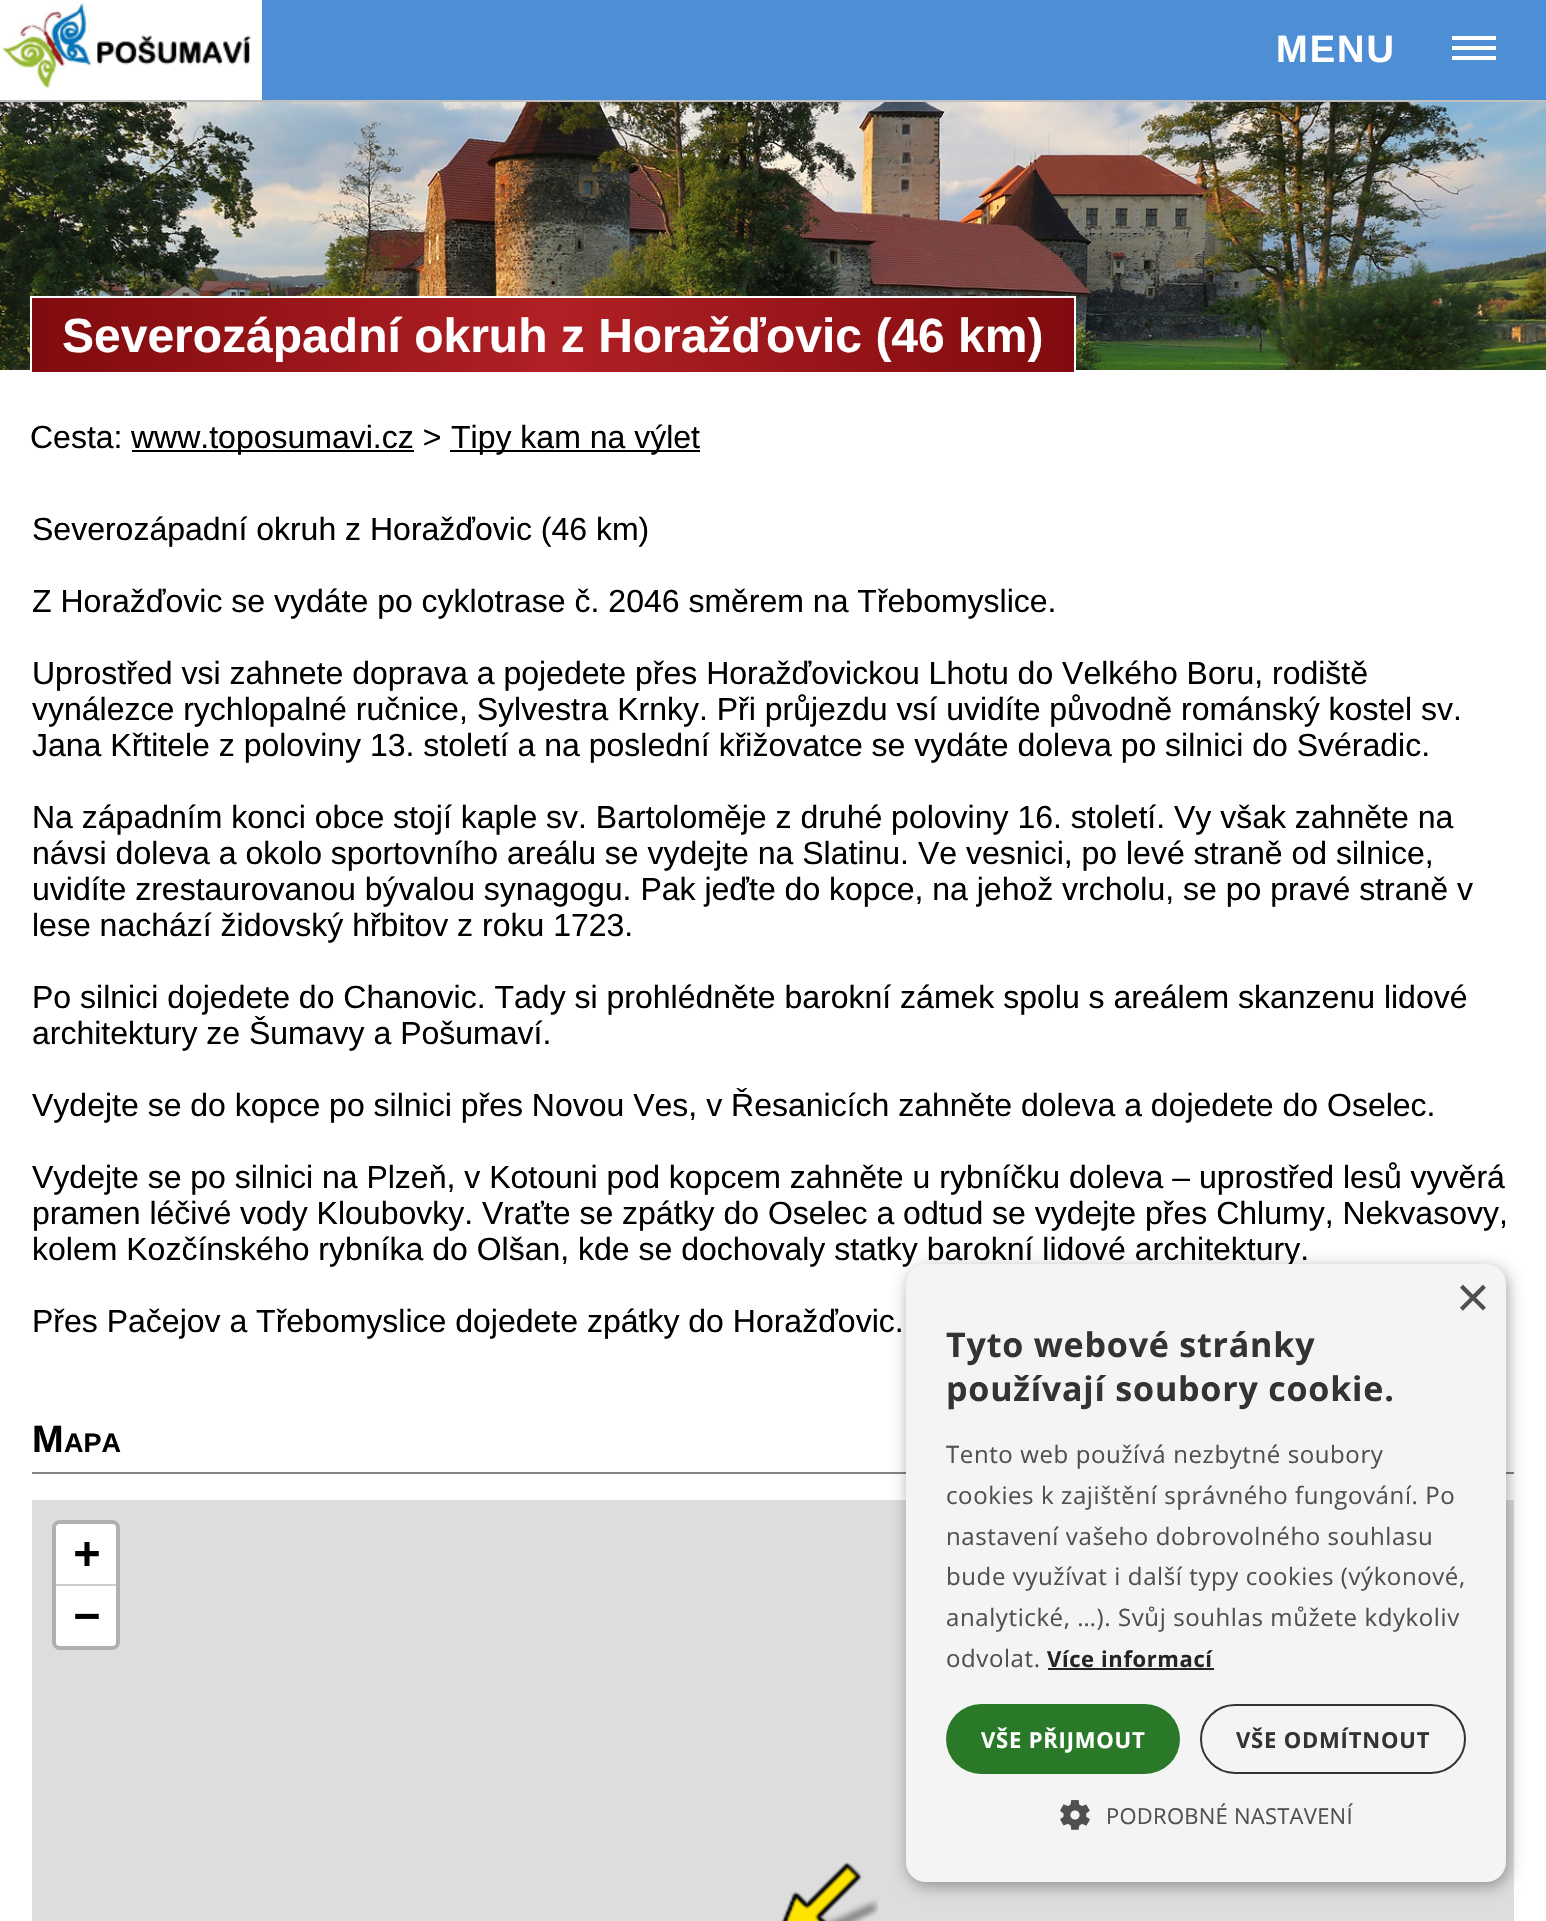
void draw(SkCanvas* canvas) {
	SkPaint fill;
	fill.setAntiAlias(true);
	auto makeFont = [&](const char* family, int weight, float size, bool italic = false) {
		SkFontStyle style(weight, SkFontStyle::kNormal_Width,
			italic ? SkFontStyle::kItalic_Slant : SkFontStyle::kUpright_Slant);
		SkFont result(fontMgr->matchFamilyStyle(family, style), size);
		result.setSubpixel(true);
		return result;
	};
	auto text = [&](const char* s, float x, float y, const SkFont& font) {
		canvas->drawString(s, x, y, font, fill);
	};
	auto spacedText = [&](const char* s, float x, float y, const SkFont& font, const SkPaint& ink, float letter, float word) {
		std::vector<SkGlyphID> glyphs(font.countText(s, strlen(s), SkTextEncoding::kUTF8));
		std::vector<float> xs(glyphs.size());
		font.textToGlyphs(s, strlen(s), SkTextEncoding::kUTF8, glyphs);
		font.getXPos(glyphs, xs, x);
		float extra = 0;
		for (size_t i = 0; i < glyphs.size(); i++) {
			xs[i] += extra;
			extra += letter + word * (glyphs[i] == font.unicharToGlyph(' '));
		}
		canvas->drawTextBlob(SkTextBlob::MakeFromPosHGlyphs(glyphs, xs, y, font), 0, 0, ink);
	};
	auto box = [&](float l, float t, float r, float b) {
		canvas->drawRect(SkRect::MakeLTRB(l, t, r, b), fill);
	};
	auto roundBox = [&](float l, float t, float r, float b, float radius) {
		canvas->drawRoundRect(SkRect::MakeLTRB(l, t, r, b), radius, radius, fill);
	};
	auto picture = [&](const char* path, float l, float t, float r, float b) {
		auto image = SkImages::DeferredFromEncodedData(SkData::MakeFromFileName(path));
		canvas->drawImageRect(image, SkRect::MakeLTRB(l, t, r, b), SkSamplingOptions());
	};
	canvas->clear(0xFFFFFFFF);
	fill.setColor(0xFF4D8ED5);
	box(262, 0, 1546, 100);
	fill.setColor(0xFFC0C0C0);
	box(0, 100, 1546, 102);
	fill.setColor(0xFFFFFFFF);
	box(1452, 36, 1496, 40);
	box(1452, 46, 1496, 50);
	box(1452, 56, 1496, 60);
	picture("image0.png", 0, 0, 262, 100);
	picture("image1.png", 0, 102, 1546, 370);
	{
		const SkColor colors[] = {0xFF800B0E, 0xFFB12025, 0xFF800B0E};
		const float stops[] = {0, 0.5f, 1};
		const SkPoint ends[] = {{32, 335}, {1074, 335}};
		fill.setShader(SkGradientShader::MakeLinear(ends, colors, stops, 3, SkTileMode::kClamp));
		fill.setAlpha(255);
	}
	box(32, 298, 1074, 372);
	fill.setStyle(SkPaint::kStroke_Style);
	fill.setStrokeWidth(2);
	fill.setShader(nullptr);
	fill.setColor(0xFFFFFFFF);
	canvas->drawRect(SkRect::MakeLTRB(31, 297, 1075, 373), fill);
	fill.setStyle(SkPaint::kFill_Style);
	fill.setColor(0xFF000000);
	box(132, 450, 414, 452);
	box(450, 450, 700, 452);
	fill.setColor(0xFF848484);
	box(32, 1472, 1514, 1474);
	picture("image2.png", 32, 1500, 1514, 1921);
	fill.setColor(0x59000000);
	fill.setMaskFilter(SkMaskFilter::MakeBlur(kNormal_SkBlurStyle, 8));
	canvas->drawRoundRect(SkRect::MakeLTRB(908, 1268, 1508, 1886), 20, 20, fill);
	fill.setMaskFilter(nullptr);
	auto font1 = makeFont("Liberation Sans", 700, 38);
	fill.setColor(0xFFFFFFFF);
	spacedText("MENU", 1276, 62, font1, fill, 2, 0);
	auto font2 = makeFont("Liberation Sans", 700, 48);
	text("Severozápadní okruh z Horažďovic (46 km)", 62, 352, font2);
	auto font3 = makeFont("Liberation Sans", 400, 32);
	fill.setColor(0xFF000000);
	text("Cesta:", 30, 448, font3);
	text("www.toposumavi.cz >", 131, 448, font3);
	text("Tipy kam na výlet", 451, 448, font3);
	text("Severozápadní okruh z Horažďovic (46 km)", 32, 540, font3);
	text("Z Horažďovic se vydáte po cyklotrase č. 2046 směrem na Třebomyslice.", 32, 612, font3);
	text("Uprostřed vsi zahnete doprava a pojedete přes Horažďovickou Lhotu do Velkého Boru, rodiště", 32, 684, font3);
	text("vynálezce rychlopalné ručnice, Sylvestra Krnky. Při průjezdu vsí uvidíte původně románský kostel sv.", 32, 720, font3);
	text("Jana Křtitele z poloviny 13. století a na poslední křižovatce se vydáte doleva po silnici do Svéradic.", 32, 756, font3);
	text("Na západním konci obce stojí kaple sv. Bartoloměje z druhé poloviny 16. století. Vy však zahněte na", 32, 828, font3);
	text("návsi doleva a okolo sportovního areálu se vydejte na Slatinu. Ve vesnici, po levé straně od silnice,", 32, 864, font3);
	text("uvidíte zrestaurovanou bývalou synagogu. Pak jeďte do kopce, na jehož vrcholu, se po pravé straně v", 32, 900, font3);
	text("lese nachází židovský hřbitov z roku 1723.", 32, 936, font3);
	text("Po silnici dojedete do Chanovic. Tady si prohlédněte barokní zámek spolu s areálem skanzenu lidové", 32, 1008, font3);
	text("architektury ze Šumavy a Pošumaví.", 32, 1044, font3);
	text("Vydejte se do kopce po silnici přes Novou Ves, v Řesanicích zahněte doleva a dojedete do Oselec.", 32, 1116, font3);
	text("Vydejte se po silnici na Plzeň, v Kotouni pod kopcem zahněte u rybníčku doleva – uprostřed lesů vyvěrá", 32, 1188, font3);
	text("pramen léčivé vody Kloubovky. Vraťte se zpátky do Oselec a odtud se vydejte přes Chlumy, Nekvasovy,", 32, 1224, font3);
	text("kolem Kozčínského rybníka do Olšan, kde se dochovaly statky barokní lidové architektury.", 32, 1260, font3);
	text("Přes Pačejov a Třebomyslice dojedete zpátky do Horažďovic.", 32, 1332, font3);
	text("M", 32, 1452, font1);
	auto font4 = makeFont("Liberation Sans", 700, 27);
	text("APA", 64, 1452, font4);
	fill.setColor(0xFFF4F4F4);
	roundBox(906, 1264, 1506, 1882, 20);
	auto font5 = makeFont("Liberation Sans", 400, 58);
	fill.setColor(0xFF505050);
	text("×", 1456, 1317, font5);
	auto font6 = makeFont("Open Sans", 700, 34);
	fill.setColor(0xFF333333);
	spacedText("Tyto webové stránky", 946, 1357, font6, fill, 0.8f, 0);
	spacedText("používají soubory cookie.", 946, 1401, font6, fill, 0.8f, 0);
	auto font7 = makeFont("Open Sans", 400, 24);
	fill.setColor(0xFF505050);
	spacedText("Tento web používá nezbytné soubory", 946, 1463, font7, fill, 0.6f, 0);
	spacedText("cookies k zajištění správného fungování. Po", 946, 1504, font7, fill, 0.6f, 0);
	spacedText("nastavení vašeho dobrovolného souhlasu", 946, 1545, font7, fill, 0.6f, 0);
	spacedText("bude využívat i další typy cookies (výkonové,", 946, 1585, font7, fill, 0.6f, 0);
	spacedText("analytické, …). Svůj souhlas můžete kdykoliv", 946, 1626, font7, fill, 0.6f, 0);
	spacedText("odvolat.", 946, 1667, font7, fill, 0.6f, 0);
	auto font8 = makeFont("Open Sans", 700, 22);
	fill.setColor(0xFF252525);
	spacedText("Více informací", 1047, 1667, font8, fill, 0.6f, 0);
	box(1048, 1668, 1214, 1670);
	fill.setColor(0xFF297929);
	roundBox(946, 1704, 1180, 1774, 35);
	fill.setColor(0xFFFFFFFF);
	spacedText("VŠE PŘIJMOUT", 981, 1748, font8, fill, 0.8f, 0);
	fill.setStyle(SkPaint::kStroke_Style);
	fill.setColor(0xFF333333);
	canvas->drawRoundRect(SkRect::MakeLTRB(1201, 1705, 1465, 1773), 34, 34, fill);
	fill.setStyle(SkPaint::kFill_Style);
	spacedText("VŠE ODMÍTNOUT", 1236, 1748, font8, fill, 0.8f, 0);
	picture("image3.png", 1060, 1800, 1090, 1830);
	auto font9 = makeFont("Open Sans", 400, 22);
	fill.setColor(0xFF505050);
	spacedText("PODROBNÉ NASTAVENÍ", 1106, 1824, font9, fill, 0.25f, 0);
}
